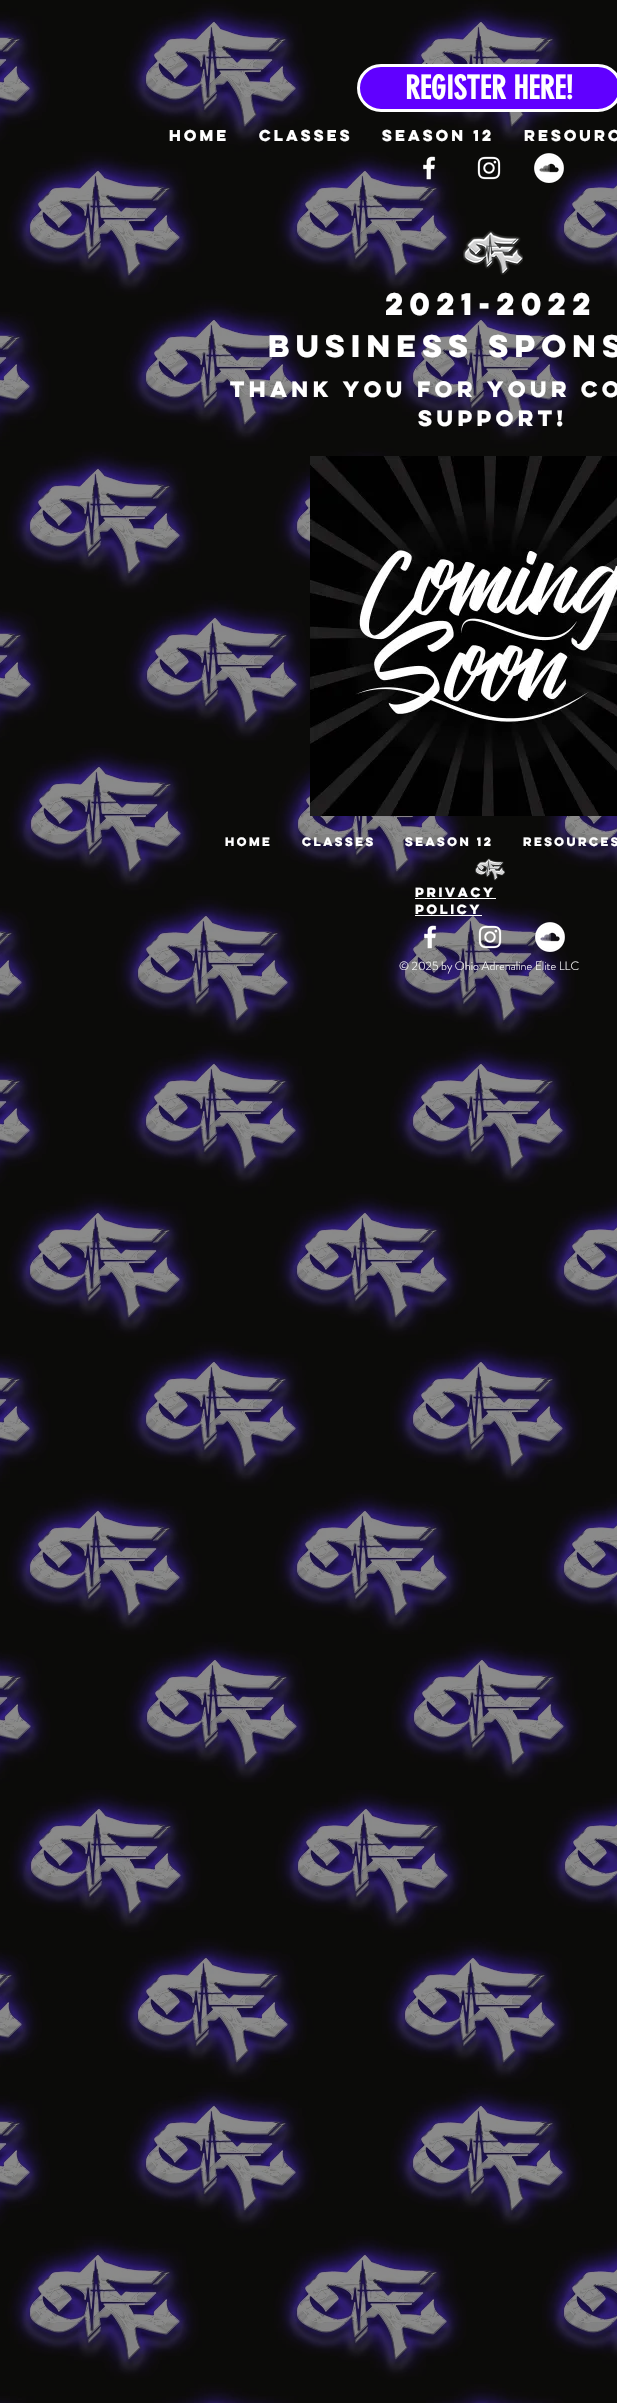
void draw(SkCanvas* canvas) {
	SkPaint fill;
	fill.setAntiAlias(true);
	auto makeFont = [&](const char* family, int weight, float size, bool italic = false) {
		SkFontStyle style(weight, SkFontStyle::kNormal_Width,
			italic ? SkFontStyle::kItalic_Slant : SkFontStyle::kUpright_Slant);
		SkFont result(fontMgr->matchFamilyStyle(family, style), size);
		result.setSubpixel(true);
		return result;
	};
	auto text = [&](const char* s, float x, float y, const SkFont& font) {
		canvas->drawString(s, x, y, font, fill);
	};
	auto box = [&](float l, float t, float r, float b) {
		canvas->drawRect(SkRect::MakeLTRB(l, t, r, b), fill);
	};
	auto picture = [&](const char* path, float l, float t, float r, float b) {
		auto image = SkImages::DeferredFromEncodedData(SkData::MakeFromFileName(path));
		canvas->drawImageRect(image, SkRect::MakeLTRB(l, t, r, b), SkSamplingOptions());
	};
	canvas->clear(0xFF000000);
	picture("image0.png", 0, 0, 617, 2403);
	fill.setColor(0xFF6000FF);
	canvas->drawRoundRect(SkRect::MakeLTRB(358.5f, 65.5f, 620.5f, 110.5f), 22.5f, 22.5f, fill);
	fill.setStyle(SkPaint::kStroke_Style);
	fill.setStrokeWidth(3);
	fill.setColor(0xFFFFFFFF);
	canvas->drawRoundRect(SkRect::MakeLTRB(358.5f, 65.5f, 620.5f, 110.5f), 22.5f, 22.5f, fill);
	picture("image1.png", 423, 156, 436, 180);
	picture("image2.png", 477, 156, 501, 180);
	picture("image3.png", 534, 153, 564, 183);
	picture("image4.png", 463, 230, 523, 275);
	picture("image5.png", 310, 456, 617, 816);
	picture("image6.png", 475, 858, 505, 881);
	fill.setStyle(SkPaint::kFill_Style);
	box(415, 898, 496, 899);
	box(415, 915, 482, 916);
	picture("image7.png", 424, 925, 437, 949);
	picture("image8.png", 478, 925, 502, 949);
	picture("image9.png", 535, 922, 565, 952);
	auto font1 = makeFont("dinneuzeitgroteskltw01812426", 700, 32);
	text("REGISTER HERE!", 405, 99, font1);
	auto font2 = makeFont("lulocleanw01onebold", 700, 14);
	text("HOME", 169, 141, font2);
	text("CLASSES", 259, 141, font2);
	text("SEASON 12", 382, 141, font2);
	text("RESOURC", 524, 141, font2);
	auto font3 = makeFont("lulocleanw01onebold", 700, 28);
	text("2021-2022", 385, 315, font3);
	text("business spons", 268, 357, font3);
	auto font4 = makeFont("lulocleanw01onebold", 700, 20);
	text("THANK YOU FOR YOUR CO", 230, 397, font4);
	text("SUPPORT!", 418, 426, font4);
	auto font5 = makeFont("lulocleanw01onebold", 700, 11);
	text("HOME", 225, 846, font5);
	text("CLASSES", 302, 846, font5);
	text("SEASON 12", 405, 846, font5);
	text("RESOURCES", 523, 846, font5);
	auto font6 = makeFont("lulocleanw01onebold", 700, 12);
	text("PRIVACY", 415, 897, font6);
	text("POLICY", 415, 914, font6);
	auto font7 = makeFont("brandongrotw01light", 300, 12);
	text("© 2025 by Ohio Adrenaline Elite LLC", 399, 970, font7);
}
